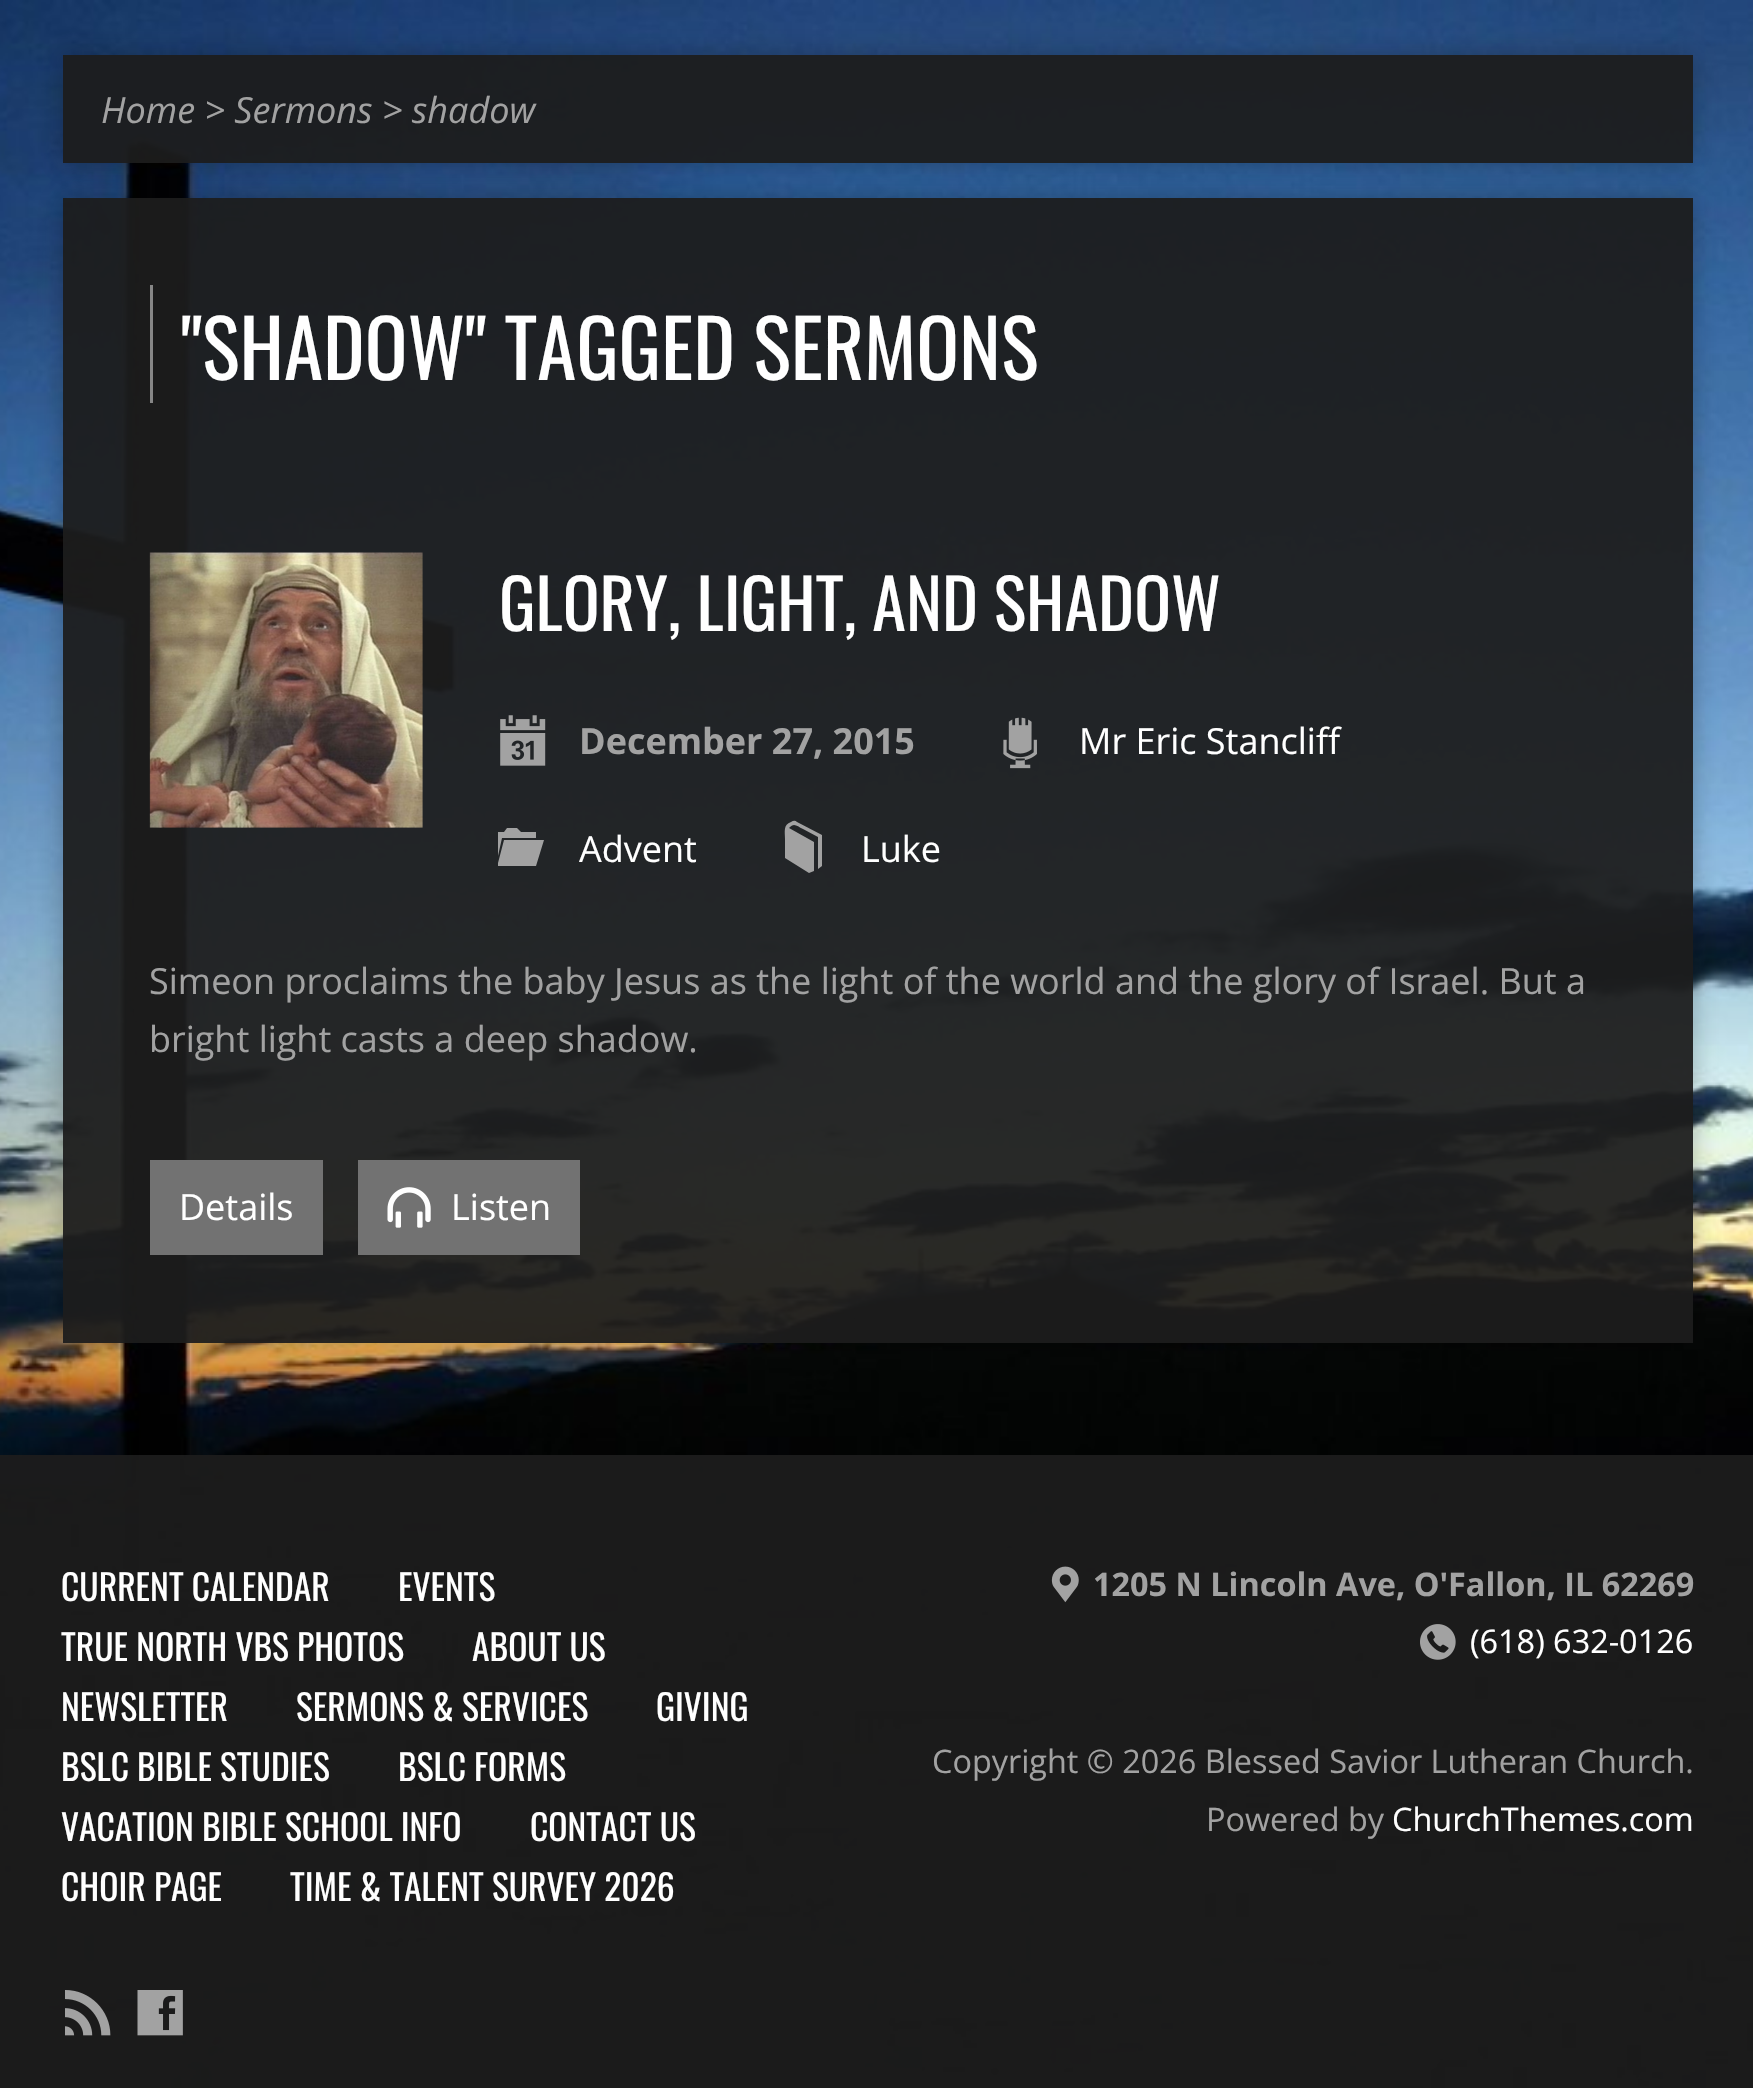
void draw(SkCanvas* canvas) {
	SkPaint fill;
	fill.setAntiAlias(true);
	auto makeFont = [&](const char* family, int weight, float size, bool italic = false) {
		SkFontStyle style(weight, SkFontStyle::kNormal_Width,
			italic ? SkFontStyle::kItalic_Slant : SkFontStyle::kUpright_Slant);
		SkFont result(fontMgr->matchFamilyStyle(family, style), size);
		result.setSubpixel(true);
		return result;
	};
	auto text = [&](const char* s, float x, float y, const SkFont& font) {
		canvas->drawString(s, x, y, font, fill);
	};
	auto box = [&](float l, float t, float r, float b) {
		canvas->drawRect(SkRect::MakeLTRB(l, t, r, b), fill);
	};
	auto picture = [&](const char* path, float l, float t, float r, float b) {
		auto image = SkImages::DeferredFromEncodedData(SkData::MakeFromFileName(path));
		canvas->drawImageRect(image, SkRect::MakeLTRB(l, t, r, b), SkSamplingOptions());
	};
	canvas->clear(0xFFFFFFFF);
	picture("image0.png", 0, 0, 1753, 2088);
	canvas->save();
	canvas->clipPath(SkPathBuilder(SkPathFillType::kEvenOdd).moveTo(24, 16).lineTo(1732, 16).lineTo(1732, 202).lineTo(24, 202).close().moveTo(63, 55).lineTo(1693, 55).lineTo(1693, 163).lineTo(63, 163).close().detach(), true);
	fill.setColor(0x40000000);
	fill.setMaskFilter(SkMaskFilter::MakeBlur(kNormal_SkBlurStyle, 12.5f));
	canvas->drawRect(SkRect::MakeLTRB(63, 55, 1693, 163), fill);
	fill.setMaskFilter(nullptr);
	canvas->restore();
	fill.setColor(0xF01C1C1C);
	box(63, 55, 1693, 163);
	canvas->save();
	canvas->clipPath(SkPathBuilder(SkPathFillType::kEvenOdd).moveTo(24, 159).lineTo(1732, 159).lineTo(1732, 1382).lineTo(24, 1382).close().moveTo(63, 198).lineTo(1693, 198).lineTo(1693, 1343).lineTo(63, 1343).close().detach(), true);
	fill.setColor(0x40000000);
	fill.setMaskFilter(SkMaskFilter::MakeBlur(kNormal_SkBlurStyle, 12.5f));
	canvas->drawRect(SkRect::MakeLTRB(63, 198, 1693, 1343), fill);
	fill.setMaskFilter(nullptr);
	canvas->restore();
	fill.setColor(0xF01C1C1C);
	box(63, 198, 1693, 1343);
	fill.setColor(0xFF868686);
	box(150, 285, 153, 403);
	picture("image1.png", 149, 552, 423, 828);
	picture("image2.png", 500, 715, 546, 766);
	picture("image3.png", 1003, 717, 1037, 769);
	fill.setColor(0xFFA2A2A2);
	canvas->drawPath(SkPathBuilder().moveTo(507, 828).lineTo(504, 832).lineTo(498, 832).lineTo(498, 856).lineTo(502, 838).lineTo(536, 838).lineTo(536, 832).lineTo(521, 832).lineTo(517, 828).close().moveTo(498, 863).lineTo(498, 866).lineTo(536, 866).lineTo(544, 840).lineTo(504, 840).close().detach(), fill);
	canvas->drawPath(SkPathBuilder().moveTo(797, 822).cubicTo(795, 820, 793, 821, 791, 822).cubicTo(783, 825, 785, 831, 785, 839).lineTo(785, 858).lineTo(809, 873).lineTo(814, 871).lineTo(814, 842).lineTo(789, 828).cubicTo(794, 822, 797, 826, 803, 829).lineTo(818, 837).lineTo(818, 869).lineTo(822, 866).lineTo(822, 835).close().detach(), fill);
	fill.setColor(0xFF727272);
	box(150, 1160, 323, 1255);
	box(358, 1160, 580, 1255);
	picture("image4.png", 387, 1187, 431, 1228);
	fill.setColor(0xF01C1C1C);
	box(0, 1455, 1753, 2088);
	picture("image5.png", 65, 1990, 111, 2036);
	picture("image6.png", 137, 1990, 183, 2036);
	picture("image7.png", 1051, 1566, 1079, 1603);
	picture("image8.png", 1420, 1624, 1456, 1660);
	auto font1 = makeFont("Open Sans", 400, 36, true);
	fill.setColor(0xFFA2A2A2);
	text("Home > Sermons > shadow", 101, 123, font1);
	auto font2 = makeFont("Oswald", 400, 79.25f);
	fill.setColor(0xFFFFFFFF);
	text("\"SHADOW\" TAGGED SERMONS", 181, 380, font2);
	auto font3 = makeFont("Oswald", 400, 68.4f);
	text("GLORY, LIGHT, AND SHADOW", 499, 631, font3);
	auto font4 = makeFont("Open Sans", 700, 36);
	fill.setColor(0xFFA2A2A2);
	text("December 27, 2015", 579, 754, font4);
	auto font5 = makeFont("Open Sans", 400, 36);
	fill.setColor(0xFFFFFFFF);
	text("Mr Eric Stancliff", 1079, 754, font5);
	text("Advent", 579, 862, font5);
	text("Luke", 861, 862, font5);
	fill.setColor(0xFFA2A2A2);
	text("Simeon proclaims the baby Jesus as the light of the world and the glory of Israel. But a", 149, 994, font5);
	text("bright light casts a deep shadow.", 149, 1052, font5);
	fill.setColor(0xFFFFFFFF);
	text("Details", 179, 1220, font5);
	text("Listen", 451, 1220, font5);
	auto font6 = makeFont("Oswald", 400, 35.6f);
	text("CURRENT CALENDAR", 61, 1601, font6);
	text("EVENTS", 398, 1601, font6);
	text("TRUE NORTH VBS PHOTOS", 61, 1661, font6);
	text("ABOUT US", 472, 1661, font6);
	text("NEWSLETTER", 61, 1721, font6);
	text("SERMONS & SERVICES", 296, 1721, font6);
	text("GIVING", 656, 1721, font6);
	text("BSLC BIBLE STUDIES", 61, 1781, font6);
	text("BSLC FORMS", 398, 1781, font6);
	text("VACATION BIBLE SCHOOL INFO", 61, 1841, font6);
	text("CONTACT US", 530, 1841, font6);
	text("CHOIR PAGE", 61, 1901, font6);
	text("TIME & TALENT SURVEY 2026", 290, 1901, font6);
	auto font7 = makeFont("Open Sans", 700, 32.4f);
	fill.setColor(0xFFA2A2A2);
	text("1205 N Lincoln Ave, O'Fallon, IL 62269", 1093, 1596, font7);
	auto font8 = makeFont("Open Sans", 400, 32.4f);
	fill.setColor(0xFFFFFFFF);
	text("(618) 632-0126", 1470, 1653, font8);
	fill.setColor(0xFFA2A2A2);
	text("Copyright © 2026 Blessed Savior Lutheran Church.", 932, 1773, font8);
	text("Powered by", 1206, 1831, font8);
	fill.setColor(0xFFFFFFFF);
	text("ChurchThemes.com", 1392, 1831, font8);
}
